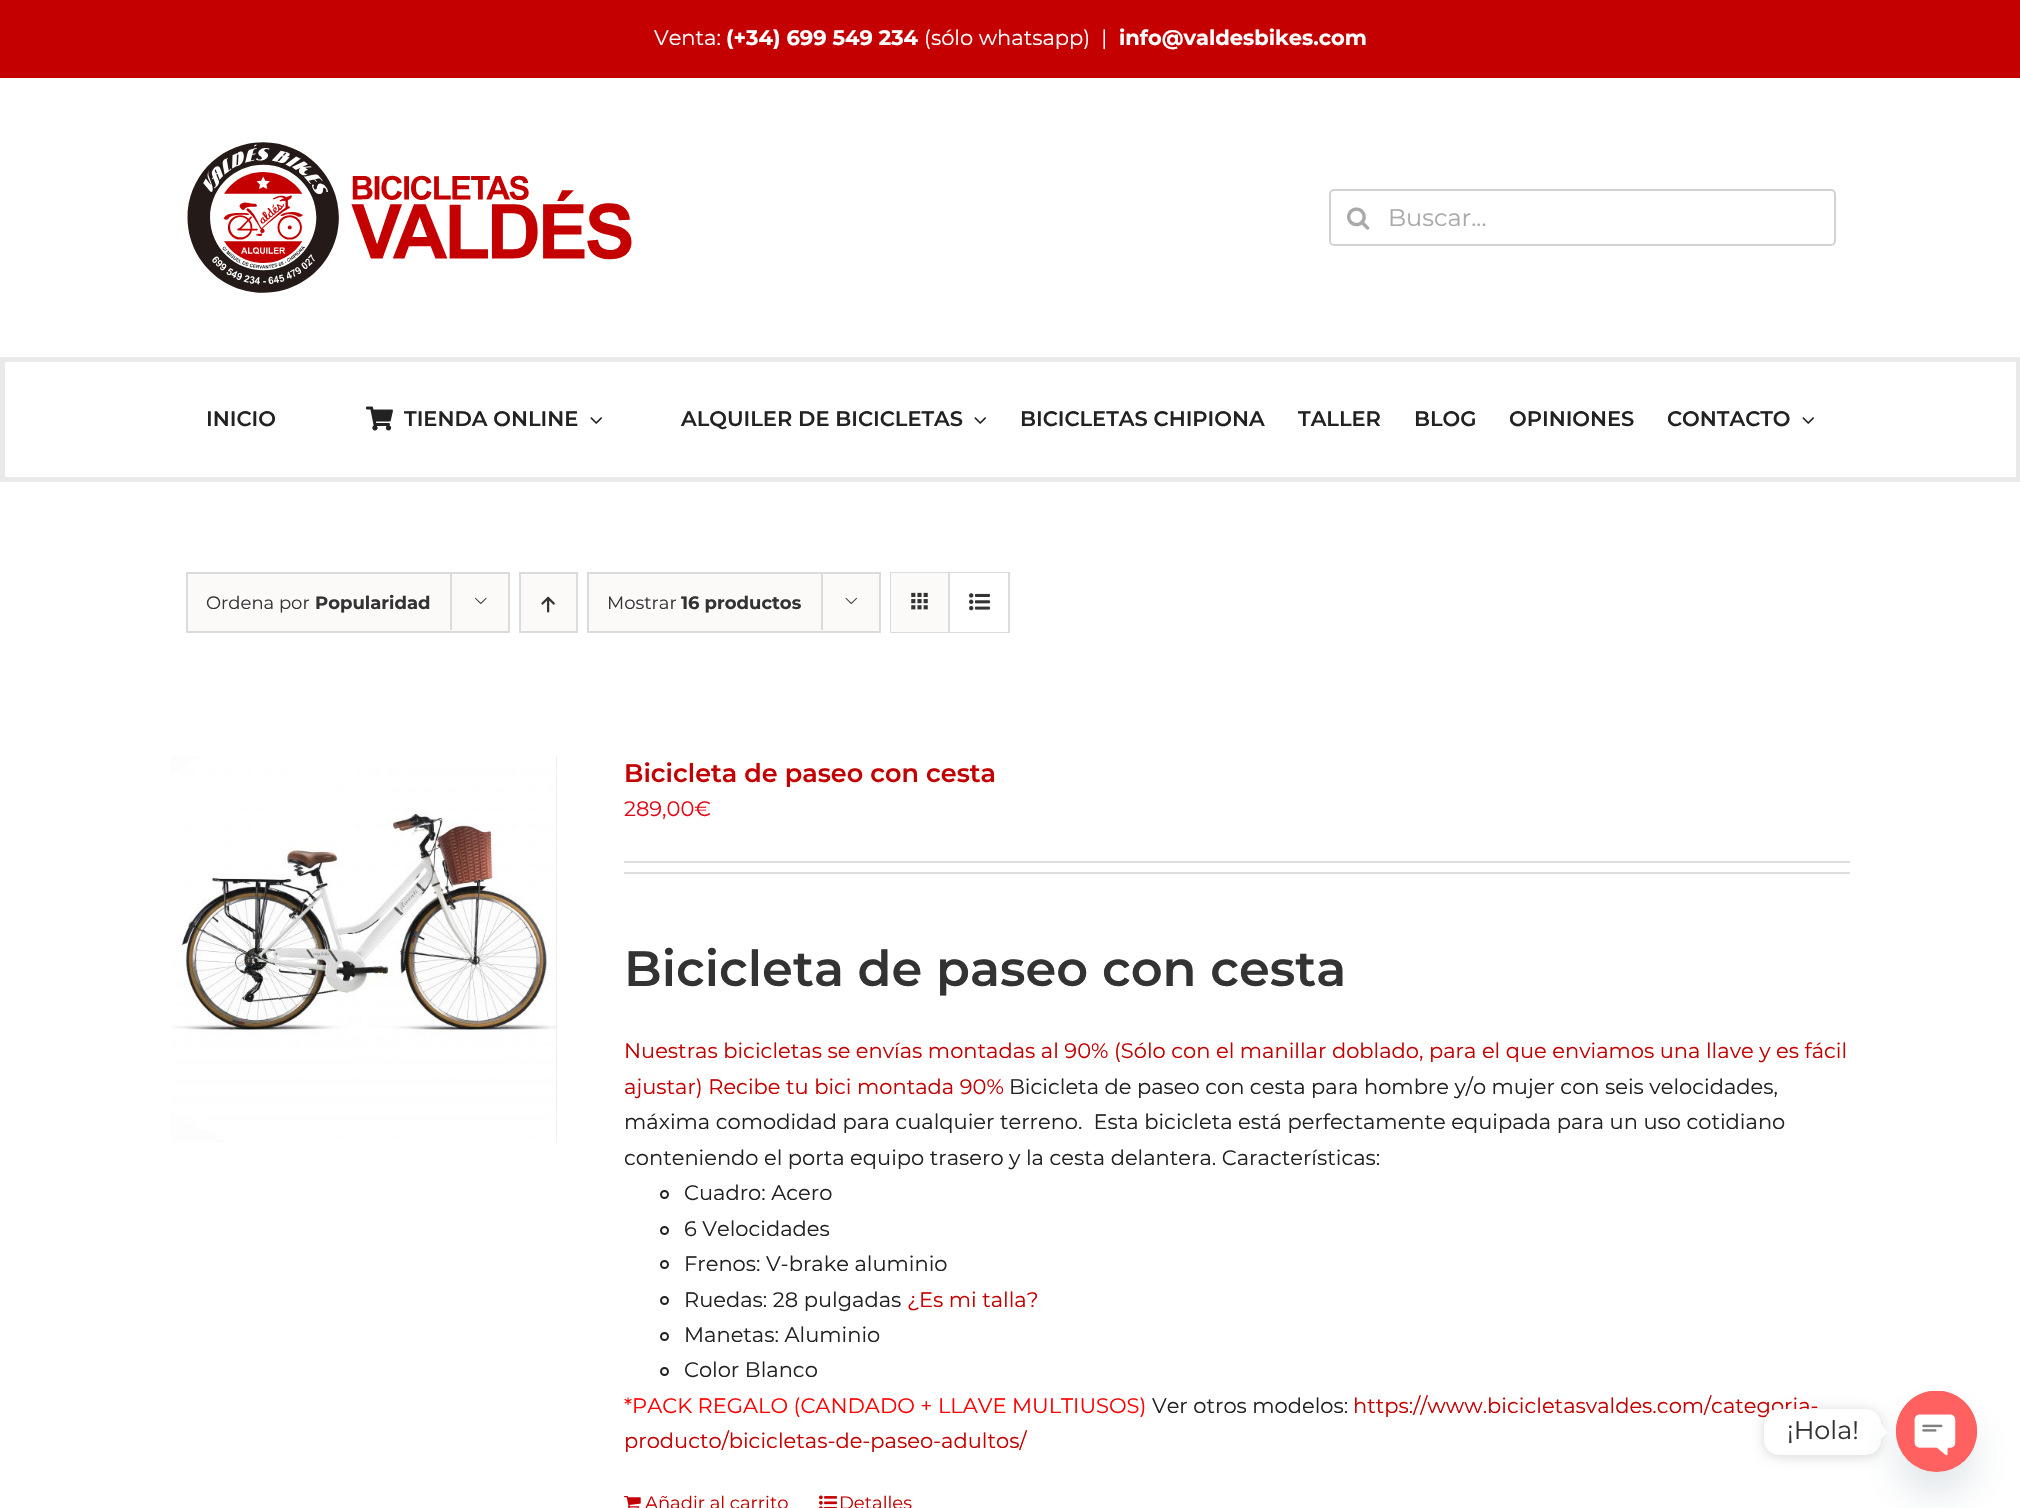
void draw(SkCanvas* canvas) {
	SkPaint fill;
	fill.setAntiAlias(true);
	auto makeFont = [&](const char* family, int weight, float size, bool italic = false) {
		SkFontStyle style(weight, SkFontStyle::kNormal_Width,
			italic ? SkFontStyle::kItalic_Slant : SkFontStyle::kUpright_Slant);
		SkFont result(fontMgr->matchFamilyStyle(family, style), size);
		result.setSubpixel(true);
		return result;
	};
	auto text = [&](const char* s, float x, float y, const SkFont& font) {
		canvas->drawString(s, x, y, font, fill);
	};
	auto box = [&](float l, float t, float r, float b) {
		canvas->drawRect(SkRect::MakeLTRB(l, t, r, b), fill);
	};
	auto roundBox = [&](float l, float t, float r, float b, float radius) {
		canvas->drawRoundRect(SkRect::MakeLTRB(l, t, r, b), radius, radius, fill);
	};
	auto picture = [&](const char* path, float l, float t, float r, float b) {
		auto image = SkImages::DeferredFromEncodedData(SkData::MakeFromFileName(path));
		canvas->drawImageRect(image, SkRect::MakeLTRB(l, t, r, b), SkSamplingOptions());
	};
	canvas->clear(0xFFFFFFFF);
	fill.setColor(0xFFC40000);
	box(0, 0, 2020, 78);
	picture("image0.png", 187, 142, 632, 293);
	fill.setStyle(SkPaint::kStroke_Style);
	fill.setStrokeWidth(2);
	fill.setColor(0xFFD2D2D2);
	canvas->drawRoundRect(SkRect::MakeLTRB(1330, 190, 1835, 245), 4, 4, fill);
	picture("image1.png", 1347, 207, 1370, 230);
	fill.setStrokeWidth(5);
	fill.setColor(0xFFEAE9E9);
	canvas->drawRect(SkRect::MakeLTRB(2.5f, 359.5f, 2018.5f, 479.5f), fill);
	picture("image2.png", 366, 406, 393, 431);
	picture("image3.png", 590, 417, 602, 424);
	picture("image3.png", 974, 417, 986, 424);
	picture("image3.png", 1802, 417, 1814, 424);
	fill.setStyle(SkPaint::kFill_Style);
	fill.setColor(0xFFFBFAF9);
	canvas->drawRect(SkRect::MakeLTRB(187, 573, 509, 632), fill);
	fill.setStyle(SkPaint::kStroke_Style);
	fill.setStrokeWidth(2);
	fill.setColor(0xFFDBDBDB);
	canvas->drawRect(SkRect::MakeLTRB(187, 573, 509, 632), fill);
	fill.setStyle(SkPaint::kFill_Style);
	box(450, 572, 452, 630);
	picture("image4.png", 475, 597, 487, 604);
	fill.setColor(0xFFFBFAF9);
	canvas->drawRect(SkRect::MakeLTRB(520, 573, 577, 632), fill);
	fill.setStyle(SkPaint::kStroke_Style);
	fill.setColor(0xFFDBDBDB);
	canvas->drawRect(SkRect::MakeLTRB(520, 573, 577, 632), fill);
	picture("image5.png", 541, 596, 555, 613);
	fill.setStyle(SkPaint::kFill_Style);
	fill.setColor(0xFFFBFAF9);
	canvas->drawRect(SkRect::MakeLTRB(588, 573, 880, 632), fill);
	fill.setStyle(SkPaint::kStroke_Style);
	fill.setColor(0xFFDBDBDB);
	canvas->drawRect(SkRect::MakeLTRB(588, 573, 880, 632), fill);
	fill.setStyle(SkPaint::kFill_Style);
	box(821, 572, 823, 630);
	picture("image6.png", 845, 597, 857, 604);
	fill.setStyle(SkPaint::kStroke_Style);
	canvas->drawRect(SkRect::MakeLTRB(891, 573, 1009, 632), fill);
	fill.setStyle(SkPaint::kFill_Style);
	fill.setColor(0xFFFBFAF9);
	box(891, 573, 948, 632);
	fill.setColor(0xFFDBDBDB);
	box(948, 573, 950, 632);
	picture("image7.png", 911, 592, 928, 610);
	fill.setColor(0xFFFFFFFF);
	box(950, 573, 1008, 632);
	picture("image8.png", 969, 593, 990, 611);
	fill.setColor(0xFFE0DEDE);
	box(556, 756, 557, 1143);
	picture("image9.png", 171, 756, 557, 1143);
	box(624, 861, 1850, 863);
	box(624, 872, 1850, 874);
	fill.setStyle(SkPaint::kStroke_Style);
	fill.setColor(0xFF222222);
	canvas->drawCircle(664.5f, 1194.5f, 3.5f, fill);
	canvas->drawCircle(664.5f, 1230.5f, 3.5f, fill);
	canvas->drawCircle(664.5f, 1264.5f, 3.5f, fill);
	canvas->drawCircle(664.5f, 1300.5f, 3.5f, fill);
	canvas->drawCircle(664.5f, 1336.5f, 3.5f, fill);
	canvas->drawCircle(664.5f, 1371.5f, 3.5f, fill);
	picture("image10.png", 624, 1496, 641, 1508);
	picture("image11.png", 819, 1495, 837, 1508);
	fill.setStyle(SkPaint::kFill_Style);
	fill.setColor(0x26000000);
	fill.setMaskFilter(SkMaskFilter::MakeBlur(kNormal_SkBlurStyle, 6));
	canvas->drawRoundRect(SkRect::MakeLTRB(1764, 1410, 1881, 1457), 15, 15, fill);
	fill.setMaskFilter(nullptr);
	fill.setColor(0xFFFFFFFF);
	canvas->drawPath(SkPathBuilder().moveTo(1881, 1439).lineTo(1881, 1424).lineTo(1888.5f, 1432).close().detach(), fill);
	auto font1 = makeFont("Montserrat", 400, 21);
	text("Venta:", 654, 45, font1);
	auto font2 = makeFont("Montserrat", 700, 21);
	text("(+34) 699 549 234", 726, 45, font2);
	text("(sólo whatsapp)  |", 924, 45, font1);
	text("info@valdesbikes.com", 1119, 45, font2);
	auto font3 = makeFont("Montserrat", 400, 24);
	fill.setColor(0xFFAAA9A9);
	text("Buscar...", 1388, 226, font3);
	auto font4 = makeFont("Montserrat", 600, 21);
	fill.setColor(0xFF222222);
	text("INICIO", 206, 426, font4);
	text("TIENDA ONLINE", 404, 426, font4);
	text("ALQUILER DE BICICLETAS", 681, 426, font4);
	text("BICICLETAS CHIPIONA", 1020, 426, font4);
	text("TALLER", 1298, 426, font4);
	text("BLOG", 1414, 426, font4);
	text("OPINIONES", 1509, 426, font4);
	text("CONTACTO", 1667, 426, font4);
	auto font5 = makeFont("Montserrat", 400, 18);
	fill.setColor(0xFF333333);
	text("Ordena por", 206, 609, font5);
	auto font6 = makeFont("Montserrat", 700, 18);
	text("Popularidad", 315, 609, font6);
	text("Mostrar", 607, 609, font5);
	text("16 productos", 681, 609, font6);
	auto font7 = makeFont("Montserrat", 600, 25.5f);
	fill.setColor(0xFFC40000);
	text("Bicicleta de paseo con cesta", 624, 782, font7);
	fill.setColor(0xFFE40615);
	text("289,00€", 624, 816, font1);
	auto font8 = makeFont("Montserrat", 600, 49.5f);
	fill.setColor(0xFF333333);
	text("Bicicleta de paseo con cesta", 624, 986, font8);
	fill.setColor(0xFFC40000);
	text("Nuestras bicicletas se envías montadas al 90% (Sólo con el manillar doblado, para el que enviamos una llave y es fácil", 624, 1058, font1);
	text("ajustar) Recibe tu bici montada 90%", 624, 1094, font1);
	fill.setColor(0xFF222222);
	text("Bicicleta de paseo con cesta para hombre y/o mujer con seis velocidades,", 1009, 1094, font1);
	text("máxima comodidad para cualquier terreno.  Esta bicicleta está perfectamente equipada para un uso cotidiano", 624, 1129, font1);
	text("conteniendo el porta equipo trasero y la cesta delantera. Características:", 624, 1165, font1);
	text("Cuadro: Acero", 684, 1200, font1);
	text("6 Velocidades", 684, 1236, font1);
	text("Frenos: V-brake aluminio", 684, 1271, font1);
	text("Ruedas: 28 pulgadas", 684, 1307, font1);
	fill.setColor(0xFFC40000);
	text("¿Es mi talla?", 907, 1307, font1);
	fill.setColor(0xFF222222);
	text("Manetas: Aluminio", 684, 1342, font1);
	text("Color Blanco", 684, 1377, font1);
	fill.setColor(0xFFFF0000);
	text("*PACK REGALO (CANDADO + LLAVE MULTIUSOS)", 624, 1413, font1);
	fill.setColor(0xFF222222);
	text("Ver otros modelos:", 1152, 1413, font1);
	fill.setColor(0xFFC40000);
	text("https://www.bicicletasvaldes.com/categoria-", 1353, 1413, font1);
	text("producto/bicicletas-de-paseo-adultos/", 624, 1448, font1);
	text("Añadir al carrito", 645, 1509, font5);
	text("Detalles", 839, 1509, font5);
	fill.setColor(0xFFFFFFFF);
	roundBox(1764, 1409, 1881, 1455, 15);
	auto font9 = makeFont("Montserrat", 400, 25.5f);
	fill.setColor(0xFF333333);
	text("¡Hola!", 1787, 1439, font9);
	fill.setColor(0x2949687E);
	fill.setMaskFilter(SkMaskFilter::MakeBlur(kNormal_SkBlurStyle, 18));
	canvas->drawRoundRect(SkRect::MakeLTRB(1896, 1415, 1977, 1496), 40.5f, 40.5f, fill);
	fill.setMaskFilter(nullptr);
	fill.setColor(0xFFFF6060);
	canvas->drawCircle(1936.5f, 1431.5f, 40.5f, fill);
	picture("image12.png", 1896, 1391, 1977, 1463);
}
